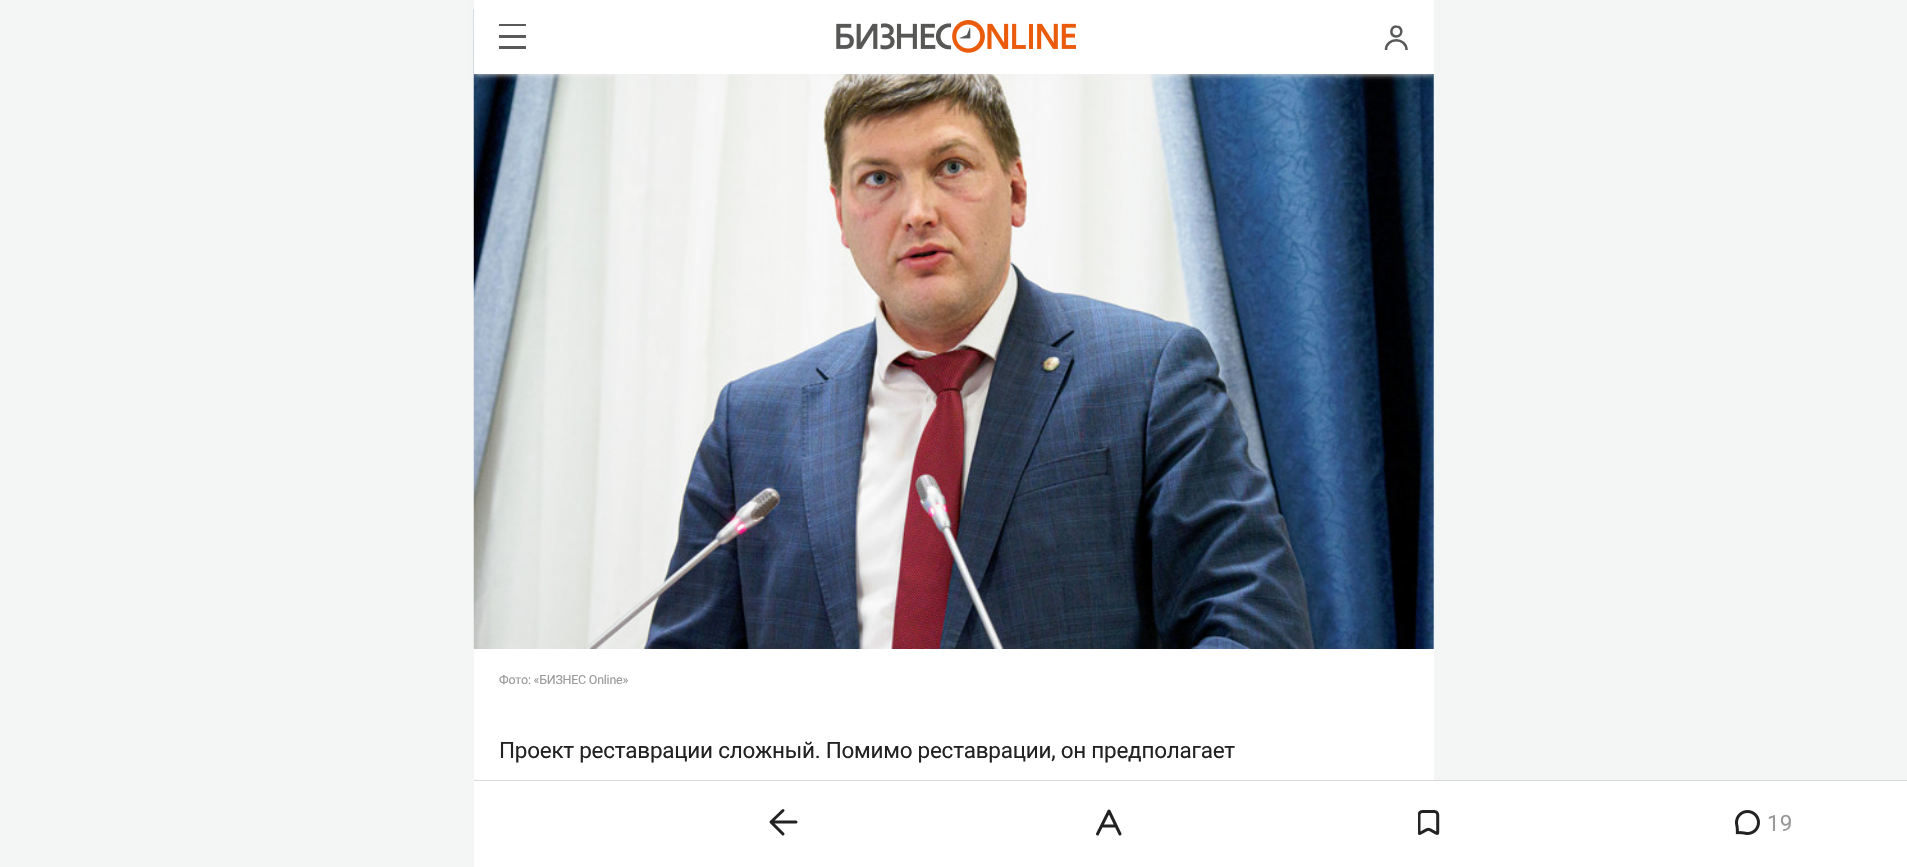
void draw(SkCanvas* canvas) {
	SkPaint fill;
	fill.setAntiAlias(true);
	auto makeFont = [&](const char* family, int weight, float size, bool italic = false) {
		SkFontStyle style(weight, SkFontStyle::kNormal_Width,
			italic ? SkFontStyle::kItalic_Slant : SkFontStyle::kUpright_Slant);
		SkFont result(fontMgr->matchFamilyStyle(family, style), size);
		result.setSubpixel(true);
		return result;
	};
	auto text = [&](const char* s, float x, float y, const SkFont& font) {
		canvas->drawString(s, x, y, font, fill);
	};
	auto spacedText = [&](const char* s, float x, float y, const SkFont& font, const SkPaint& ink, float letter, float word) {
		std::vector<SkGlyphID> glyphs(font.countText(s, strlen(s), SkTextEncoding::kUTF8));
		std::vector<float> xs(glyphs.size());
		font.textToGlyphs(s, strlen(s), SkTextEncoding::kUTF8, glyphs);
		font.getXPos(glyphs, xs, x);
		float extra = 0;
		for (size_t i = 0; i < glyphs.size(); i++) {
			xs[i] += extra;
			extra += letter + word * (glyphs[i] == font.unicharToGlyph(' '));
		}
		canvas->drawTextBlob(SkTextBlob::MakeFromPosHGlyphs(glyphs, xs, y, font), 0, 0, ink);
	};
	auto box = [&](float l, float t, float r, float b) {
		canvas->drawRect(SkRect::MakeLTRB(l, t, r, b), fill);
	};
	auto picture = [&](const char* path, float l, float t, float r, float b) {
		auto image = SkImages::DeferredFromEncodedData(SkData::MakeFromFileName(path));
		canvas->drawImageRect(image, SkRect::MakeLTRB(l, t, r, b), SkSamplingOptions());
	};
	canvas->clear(0xFFF4F5F5);
	fill.setColor(0xFFFFFFFF);
	box(474, 74, 1434, 780);
	picture("image1.png", 473, 9, 1434, 649);
	fill.setColor(0xFFF2F2F2);
	fill.setMaskFilter(SkMaskFilter::MakeBlur(kNormal_SkBlurStyle, 3));
	canvas->drawRect(SkRect::MakeLTRB(474, 0, 1434, 74), fill);
	fill.setMaskFilter(nullptr);
	fill.setColor(0xFFFFFFFF);
	box(474, 0, 1434, 74);
	fill.setColor(0xFF595A5C);
	box(499, 24, 526, 49);
	fill.setColor(0xFFFFFFFF);
	box(499, 26, 526, 35);
	box(499, 38, 526, 46);
	picture("image0.png", 836, 20, 1076, 53);
	fill.setStyle(SkPaint::kStroke_Style);
	fill.setStrokeWidth(2.5f);
	fill.setColor(0xFF58595B);
	canvas->drawPath(SkPathBuilder().moveTo(1406.5f, 50).cubicTo(1406.5f, 37, 1386, 37, 1386, 50).moveTo(1396, 36.5f).cubicTo(1403, 36.5f, 1403, 26.5f, 1396.5f, 26.5f).cubicTo(1390, 26, 1389.5f, 36.5f, 1396, 36.5f).close().detach(), fill);
	fill.setStyle(SkPaint::kFill_Style);
	fill.setColor(0xFFFFFFFF);
	box(474, 781, 1907, 867);
	fill.setColor(0xFFD9D9D9);
	box(474, 780, 1907, 781);
	fill.setStyle(SkPaint::kStroke_Style);
	fill.setStrokeWidth(3);
	fill.setStrokeCap(SkPaint::kRound_Cap);
	fill.setStrokeJoin(SkPaint::kRound_Join);
	fill.setColor(0xFF222222);
	canvas->drawPath(SkPathBuilder().moveTo(783, 810.5f).lineTo(771, 822).lineTo(783, 834).moveTo(796, 822).lineTo(771.5f, 822).detach(), fill);
	canvas->drawPath(SkPathBuilder().moveTo(1097.5f, 834).lineTo(1109, 811).lineTo(1120, 834).moveTo(1101.5f, 826).lineTo(1115.5f, 826).detach(), fill);
	picture("image2.png", 1418, 810, 1440, 835);
	picture("image3.png", 1735, 810, 1760, 835);
	auto font1 = makeFont("Roboto", 400, 12.5f);
	fill.setStyle(SkPaint::kFill_Style);
	fill.setColor(0xFF999999);
	spacedText("Фото: «БИЗНЕС Online»", 499, 684, font1, fill, -0.25f, 0);
	auto font2 = makeFont("Roboto", 400, 22.5f);
	fill.setColor(0xFF222222);
	spacedText("Проект реставрации сложный. Помимо реставрации, он предполагает", 499, 758, font2, fill, -0.25f, 0);
	fill.setColor(0xFF999999);
	text("19", 1767, 831, font2);
}
